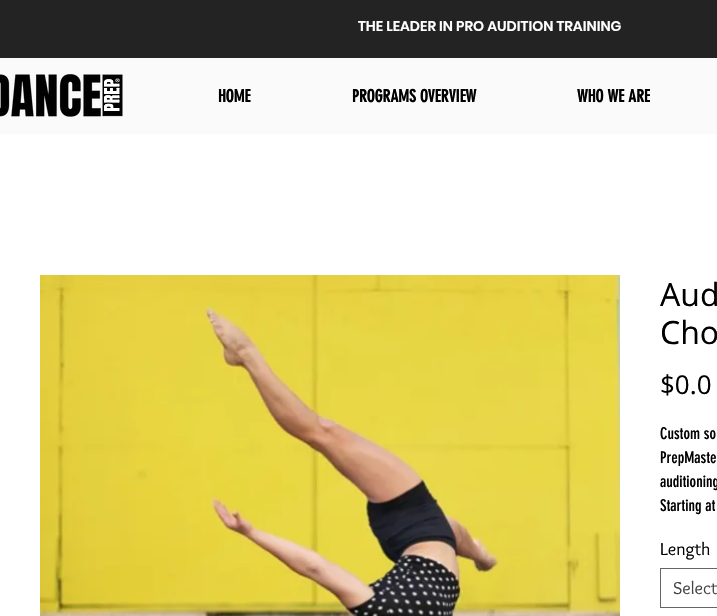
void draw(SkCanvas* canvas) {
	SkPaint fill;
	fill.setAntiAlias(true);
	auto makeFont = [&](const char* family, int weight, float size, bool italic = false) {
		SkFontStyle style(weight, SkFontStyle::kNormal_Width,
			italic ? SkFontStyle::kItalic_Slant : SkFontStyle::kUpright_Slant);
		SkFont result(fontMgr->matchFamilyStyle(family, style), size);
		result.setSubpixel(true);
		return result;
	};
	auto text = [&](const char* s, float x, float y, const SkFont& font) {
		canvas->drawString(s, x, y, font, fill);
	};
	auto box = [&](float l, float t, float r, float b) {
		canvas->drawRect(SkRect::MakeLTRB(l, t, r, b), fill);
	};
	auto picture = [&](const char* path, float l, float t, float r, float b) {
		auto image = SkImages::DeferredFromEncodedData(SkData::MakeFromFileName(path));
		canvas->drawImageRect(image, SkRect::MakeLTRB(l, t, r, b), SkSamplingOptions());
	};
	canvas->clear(0xFFFFFFFF);
	fill.setColor(0xFF242323);
	box(0, 0, 717, 58);
	fill.setColor(0xFFFAFAFA);
	box(0, 58, 717, 134);
	picture("image0.png", 0, 74, 123, 117);
	picture("image1.png", 40, 275, 620, 616);
	fill.setStyle(SkPaint::kStroke_Style);
	fill.setStrokeWidth(1);
	fill.setColor(0xFF666666);
	canvas->drawRect(SkRect::MakeLTRB(660.5f, 568.5f, 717.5f, 607.5f), fill);
	auto font1 = makeFont("Poppins", 600, 14);
	fill.setStyle(SkPaint::kFill_Style);
	fill.setColor(0xFFFFFFFF);
	text("THE LEADER IN PRO AUDITION TRAINING", 358, 31, font1);
	auto font2 = makeFont("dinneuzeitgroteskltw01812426", 700, 17);
	fill.setColor(0xFF000000);
	text("HOME", 218, 102, font2);
	text("PROGRAMS OVERVIEW", 352, 102, font2);
	text("WHO WE ARE", 577, 102, font2);
	auto font3 = makeFont("Open Sans", 400, 32);
	text("Aud", 660, 306, font3);
	text("Cho", 660, 344, font3);
	auto font4 = makeFont("Open Sans", 400, 26);
	text("$0.0", 660, 394, font4);
	auto font5 = makeFont("dinneuzeitgroteskltw01812426", 400, 16);
	text("Custom so", 660, 439, font5);
	text("PrepMaste", 660, 463, font5);
	text("auditioning", 660, 487, font5);
	text("Starting at", 660, 511, font5);
	auto font6 = makeFont("Overlock", 400, 18);
	text("Length", 660, 555, font6);
	fill.setColor(0xFF444444);
	text("Select", 673, 594, font6);
}
